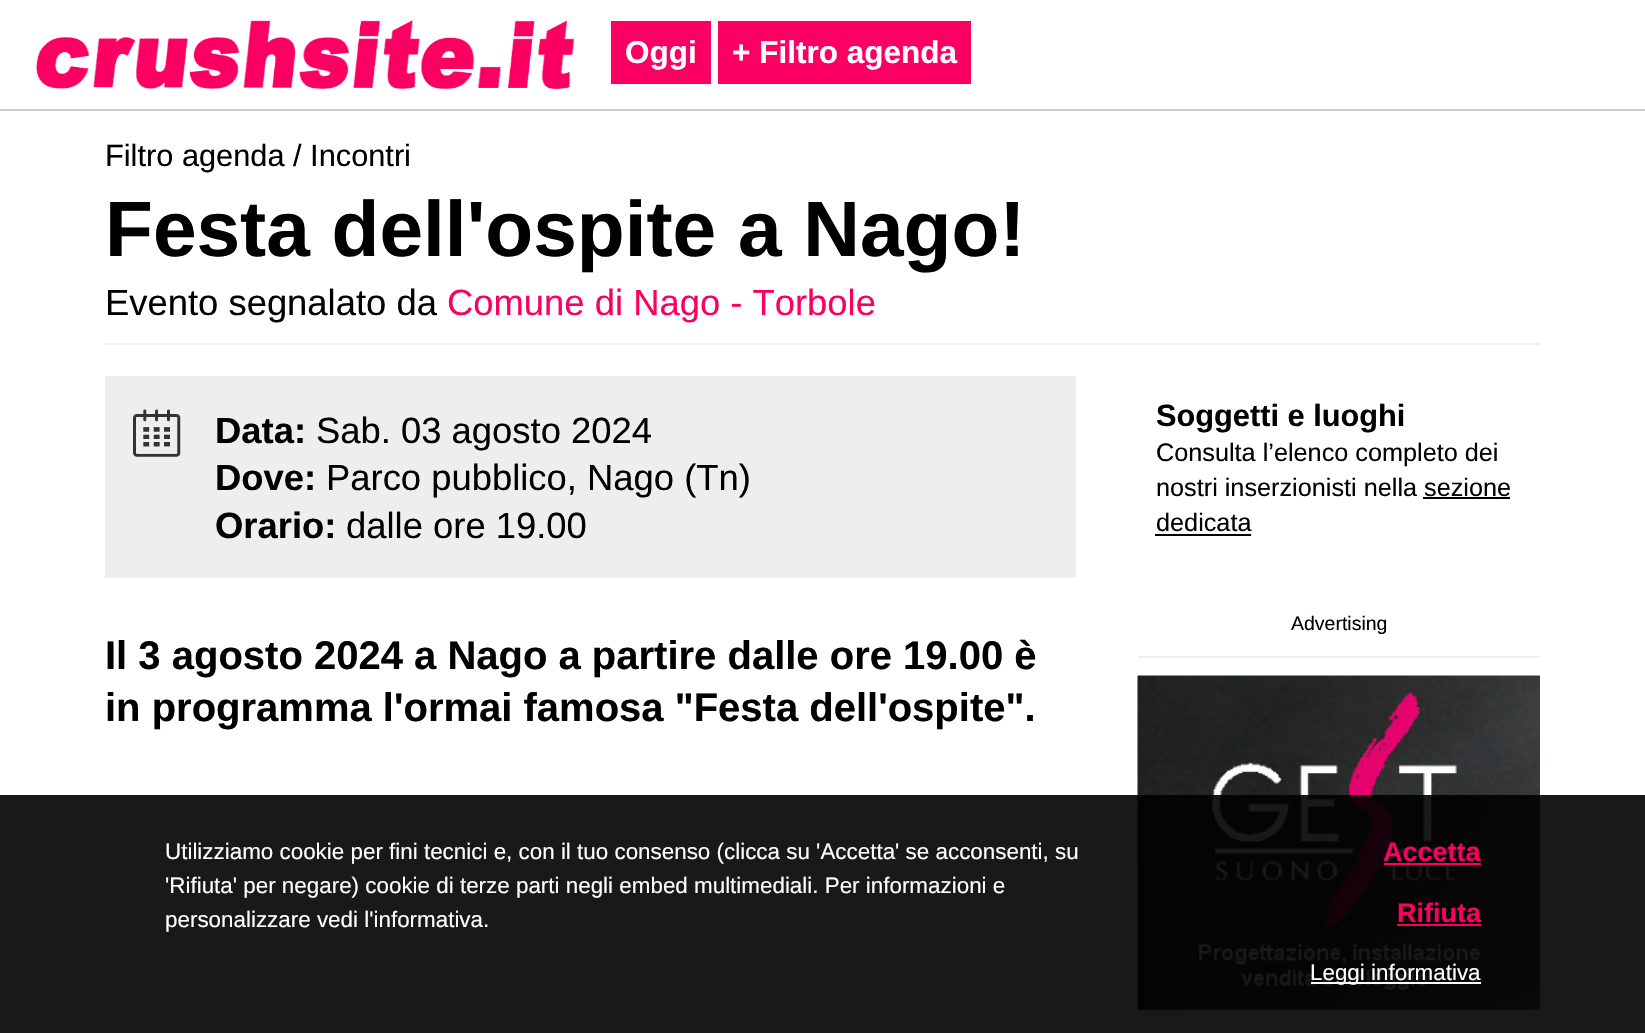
void draw(SkCanvas* canvas) {
	SkPaint fill;
	fill.setAntiAlias(true);
	auto makeFont = [&](const char* family, int weight, float size, bool italic = false) {
		SkFontStyle style(weight, SkFontStyle::kNormal_Width,
			italic ? SkFontStyle::kItalic_Slant : SkFontStyle::kUpright_Slant);
		SkFont result(fontMgr->matchFamilyStyle(family, style), size);
		result.setSubpixel(true);
		return result;
	};
	auto text = [&](const char* s, float x, float y, const SkFont& font) {
		canvas->drawString(s, x, y, font, fill);
	};
	auto box = [&](float l, float t, float r, float b) {
		canvas->drawRect(SkRect::MakeLTRB(l, t, r, b), fill);
	};
	auto picture = [&](const char* path, float l, float t, float r, float b) {
		auto image = SkImages::DeferredFromEncodedData(SkData::MakeFromFileName(path));
		canvas->drawImageRect(image, SkRect::MakeLTRB(l, t, r, b), SkSamplingOptions());
	};
	canvas->clear(0xFFFFFFFF);
	fill.setColor(0xFFCCCCCC);
	box(0, 109, 1645, 111);
	picture("image0.png", 36, 20, 574, 89);
	fill.setColor(0xFFFB0062);
	box(611, 21, 711, 84);
	box(718, 21, 971, 84);
	fill.setColor(0xFFEEEEEE);
	box(105, 343, 1540, 345);
	box(105, 376, 1076, 578);
	picture("image1.png", 133, 409, 181, 457);
	fill.setColor(0xFF000000);
	box(1423, 497, 1510, 499);
	box(1155, 534, 1251, 536);
	fill.setColor(0xFFEEEEEE);
	box(1138, 656, 1540, 658);
	picture("image2.png", 1137, 675, 1540, 1010);
	fill.setColor(0xE6000000);
	box(0, 795, 1645, 1033);
	fill.setColor(0xFFFB0062);
	box(1384, 863, 1481, 865);
	box(1397, 924, 1481, 926);
	fill.setColor(0xFFFFFFFF);
	box(1311, 982, 1481, 984);
	auto font1 = makeFont("Liberation Sans", 700, 31.5f);
	text("Oggi", 625, 63, font1);
	text("+ Filtro agenda", 732, 63, font1);
	auto font2 = makeFont("Liberation Sans", 400, 30.75f);
	fill.setColor(0xFF000000);
	text("Filtro agenda / Incontri", 105, 166, font2);
	auto font3 = makeFont("Liberation Sans", 700, 78.4f);
	text("Festa dell'ospite a Nago!", 105, 256, font3);
	auto font4 = makeFont("Liberation Sans", 400, 36.4f);
	text("Evento segnalato da", 105, 315, font4);
	fill.setColor(0xFFFB0062);
	text("Comune di Nago - Torbole", 447, 315, font4);
	auto font5 = makeFont("Liberation Sans", 700, 36.4f);
	fill.setColor(0xFF000000);
	text("Data:", 215, 443, font5);
	text("Sab. 03 agosto 2024", 316, 443, font4);
	text("Dove:", 215, 490, font5);
	text("Parco pubblico, Nago (Tn)", 326, 490, font4);
	text("Orario:", 215, 538, font5);
	text("dalle ore 19.00", 346, 538, font4);
	auto font6 = makeFont("Liberation Sans", 700, 40);
	text("Il 3 agosto 2024 a Nago a partire dalle ore 19.00 è", 105, 669, font6);
	text("in programma l'ormai famosa \"Festa dell'ospite\".", 105, 721, font6);
	auto font7 = makeFont("Liberation Sans", 700, 30.75f);
	text("Soggetti e luoghi", 1156, 426, font7);
	auto font8 = makeFont("Liberation Sans", 400, 25.25f);
	text("Consulta l’elenco completo dei", 1156, 461, font8);
	text("nostri inserzionisti nella sezione", 1156, 496, font8);
	text("dedicata", 1156, 531, font8);
	auto font9 = makeFont("Liberation Sans", 400, 19.5f);
	text("Advertising", 1291, 630, font9);
	auto font10 = makeFont("Liberation Sans", 400, 22.4f);
	fill.setColor(0xFFFFFFFF);
	text("Utilizziamo cookie per fini tecnici e, con il tuo consenso (clicca su 'Accetta' se acconsenti, su", 165, 859, font10);
	text("'Rifiuta' per negare) cookie di terze parti negli embed multimediali. Per informazioni e", 165, 893, font10);
	text("personalizzare vedi l'informativa.", 165, 927, font10);
	auto font11 = makeFont("Liberation Sans", 700, 27);
	fill.setColor(0xFFFB0062);
	text("Accetta", 1383, 861, font11);
	text("Rifiuta", 1397, 922, font11);
	fill.setColor(0xFFFFFFFF);
	text("Leggi informativa", 1310, 980, font10);
}
